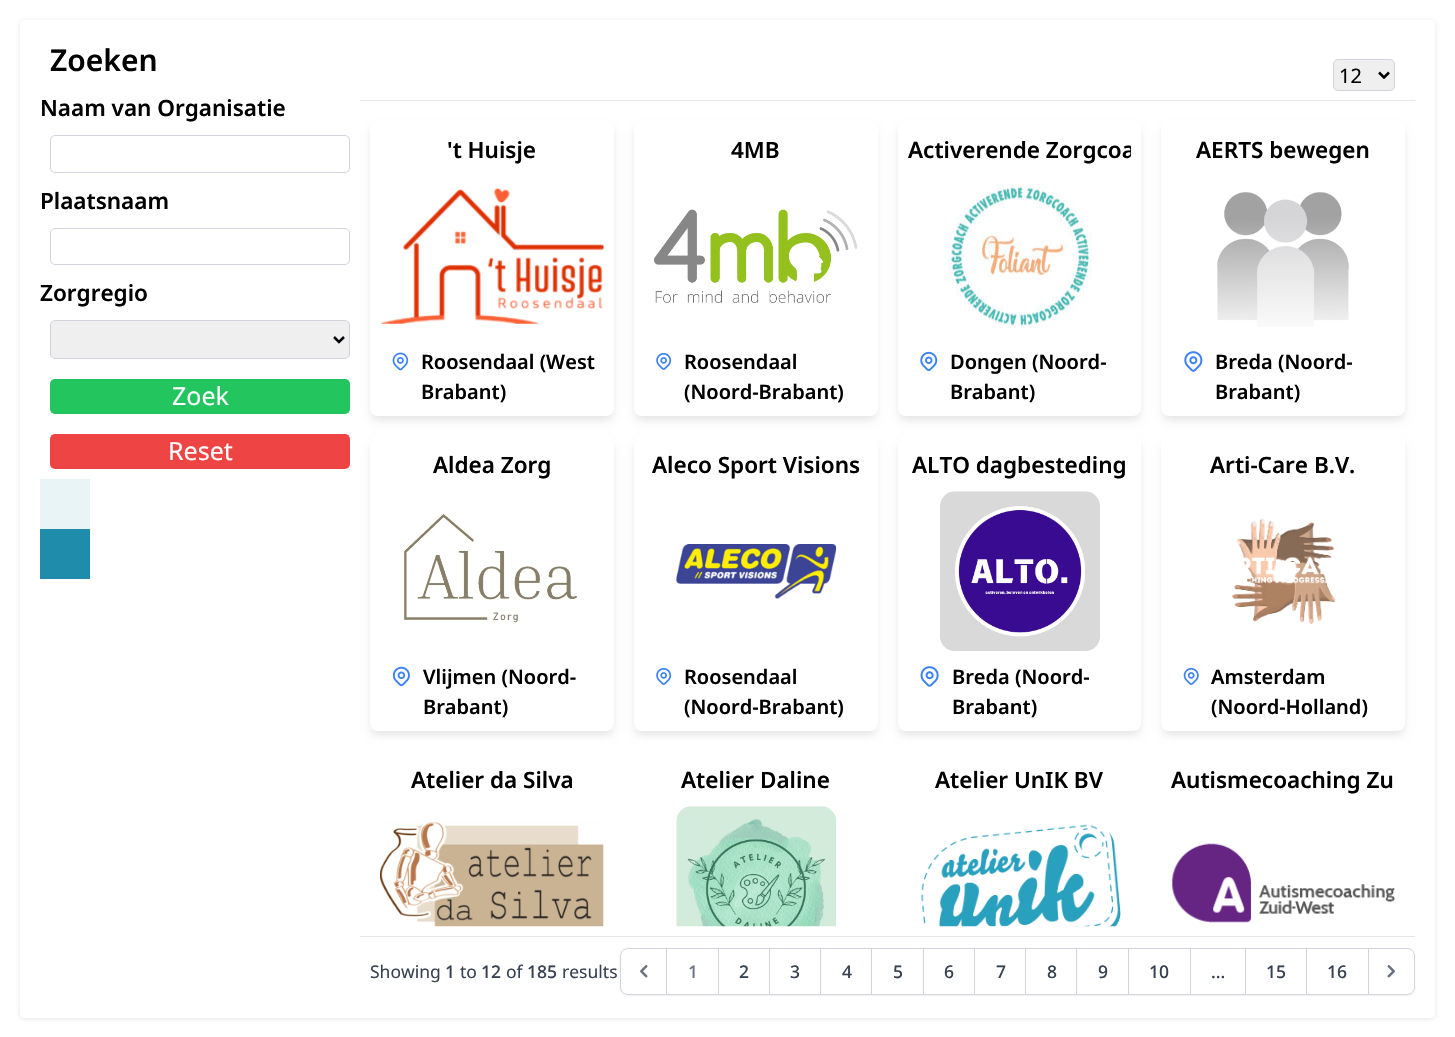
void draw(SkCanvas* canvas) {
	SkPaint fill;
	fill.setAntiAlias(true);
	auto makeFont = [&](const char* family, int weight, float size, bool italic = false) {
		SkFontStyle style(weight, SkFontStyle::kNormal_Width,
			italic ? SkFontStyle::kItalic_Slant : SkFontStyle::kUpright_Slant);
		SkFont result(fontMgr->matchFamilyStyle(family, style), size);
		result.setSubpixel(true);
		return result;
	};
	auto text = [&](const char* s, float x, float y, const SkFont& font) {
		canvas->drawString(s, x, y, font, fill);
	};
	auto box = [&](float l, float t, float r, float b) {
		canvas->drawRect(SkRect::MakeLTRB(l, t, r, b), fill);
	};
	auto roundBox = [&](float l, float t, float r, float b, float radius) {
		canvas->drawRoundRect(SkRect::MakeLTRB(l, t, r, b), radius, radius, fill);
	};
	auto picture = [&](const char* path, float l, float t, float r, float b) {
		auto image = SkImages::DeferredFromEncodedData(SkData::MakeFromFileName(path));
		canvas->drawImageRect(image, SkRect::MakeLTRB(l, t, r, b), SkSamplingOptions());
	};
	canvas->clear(0xFFFFFFFF);
	canvas->save();
	canvas->clipPath(SkPathBuilder(SkPathFillType::kEvenOdd).moveTo(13, 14).lineTo(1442, 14).lineTo(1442, 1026).lineTo(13, 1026).close().moveTo(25, 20).lineTo(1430, 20).cubicTo(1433, 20, 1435, 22, 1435, 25).lineTo(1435, 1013).cubicTo(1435, 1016, 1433, 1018, 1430, 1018).lineTo(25, 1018).cubicTo(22, 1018, 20, 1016, 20, 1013).lineTo(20, 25).cubicTo(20, 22, 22, 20, 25, 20).close().detach(), true);
	fill.setColor(0x1A000000);
	fill.setMaskFilter(SkMaskFilter::MakeBlur(kNormal_SkBlurStyle, 2));
	canvas->drawRoundRect(SkRect::MakeLTRB(20, 21, 1435, 1019), 5, 5, fill);
	fill.setMaskFilter(nullptr);
	canvas->restore();
	fill.setStyle(SkPaint::kStroke_Style);
	fill.setStrokeWidth(1);
	fill.setColor(0xFFD1D5DB);
	canvas->drawRoundRect(SkRect::MakeLTRB(50.5f, 135.5f, 349.5f, 172.5f), 4.5f, 4.5f, fill);
	canvas->drawRoundRect(SkRect::MakeLTRB(50.5f, 228.5f, 349.5f, 264.5f), 4.5f, 4.5f, fill);
	fill.setStyle(SkPaint::kFill_Style);
	fill.setColor(0xFFEFEFEF);
	canvas->drawRoundRect(SkRect::MakeLTRB(50.5f, 320.5f, 349.5f, 358.5f), 4.5f, 4.5f, fill);
	fill.setStyle(SkPaint::kStroke_Style);
	fill.setColor(0xFFD1D5DB);
	canvas->drawRoundRect(SkRect::MakeLTRB(50.5f, 320.5f, 349.5f, 358.5f), 4.5f, 4.5f, fill);
	fill.setStrokeWidth(2.5f);
	fill.setColor(0xFF000000);
	canvas->drawPath(SkPathBuilder().moveTo(334, 337).lineTo(339, 342).lineTo(344, 337).detach(), fill);
	fill.setStyle(SkPaint::kFill_Style);
	fill.setColor(0xFF22C55E);
	roundBox(50, 379, 350, 414, 5);
	fill.setColor(0xFFEF4444);
	roundBox(50, 434, 350, 469, 5);
	fill.setColor(0xFFE9F4F7);
	box(40, 479, 90, 529);
	fill.setColor(0xFF1F8CAB);
	box(40, 529, 90, 579);
	fill.setColor(0xFFEFEFEF);
	canvas->drawRoundRect(SkRect::MakeLTRB(1333.5f, 59.5f, 1394.5f, 90.5f), 4.5f, 4.5f, fill);
	fill.setStyle(SkPaint::kStroke_Style);
	fill.setStrokeWidth(1);
	fill.setColor(0xFFD1D5DB);
	canvas->drawRoundRect(SkRect::MakeLTRB(1333.5f, 59.5f, 1394.5f, 90.5f), 4.5f, 4.5f, fill);
	fill.setStrokeWidth(2.5f);
	fill.setColor(0xFF000000);
	canvas->drawPath(SkPathBuilder().moveTo(1379, 72.5f).lineTo(1384, 77.5f).lineTo(1389, 72.5f).detach(), fill);
	fill.setStyle(SkPaint::kFill_Style);
	fill.setColor(0xFFE5E7EB);
	box(360, 100, 1415, 101);
	canvas->save();
	canvas->clipPath(SkPathBuilder(SkPathFillType::kEvenOdd).moveTo(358, 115).lineTo(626, 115).lineTo(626, 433).lineTo(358, 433).close().moveTo(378, 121).lineTo(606, 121).cubicTo(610.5f, 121, 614, 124.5f, 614, 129).lineTo(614, 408).cubicTo(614, 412.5f, 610.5f, 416, 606, 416).lineTo(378, 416).cubicTo(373.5f, 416, 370, 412.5f, 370, 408).lineTo(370, 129).cubicTo(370, 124.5f, 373.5f, 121, 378, 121).close().detach(), true);
	fill.setColor(0x1A000000);
	fill.setMaskFilter(SkMaskFilter::MakeBlur(kNormal_SkBlurStyle, 4));
	canvas->drawRoundRect(SkRect::MakeLTRB(371, 128, 613, 420), 6, 6, fill);
	fill.setMaskFilter(nullptr);
	canvas->restore();
	picture("image0.png", 380, 188, 604, 324);
	picture("image1.png", 392, 352, 409, 371);
	canvas->save();
	canvas->clipPath(SkPathBuilder(SkPathFillType::kEvenOdd).moveTo(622, 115).lineTo(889, 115).lineTo(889, 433).lineTo(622, 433).close().moveTo(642, 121).lineTo(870, 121).cubicTo(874.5f, 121, 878, 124.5f, 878, 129).lineTo(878, 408).cubicTo(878, 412.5f, 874.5f, 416, 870, 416).lineTo(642, 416).cubicTo(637.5f, 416, 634, 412.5f, 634, 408).lineTo(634, 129).cubicTo(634, 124.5f, 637.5f, 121, 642, 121).close().detach(), true);
	fill.setMaskFilter(SkMaskFilter::MakeBlur(kNormal_SkBlurStyle, 4));
	canvas->drawRoundRect(SkRect::MakeLTRB(635, 128, 876, 420), 6, 6, fill);
	fill.setMaskFilter(nullptr);
	canvas->restore();
	picture("image2.png", 654, 209, 858, 303);
	picture("image3.png", 656, 353, 672, 370);
	canvas->save();
	canvas->clipPath(SkPathBuilder(SkPathFillType::kEvenOdd).moveTo(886, 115).lineTo(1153, 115).lineTo(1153, 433).lineTo(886, 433).close().moveTo(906, 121).lineTo(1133, 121).cubicTo(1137.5f, 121, 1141, 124.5f, 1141, 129).lineTo(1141, 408).cubicTo(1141, 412.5f, 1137.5f, 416, 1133, 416).lineTo(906, 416).cubicTo(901.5f, 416, 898, 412.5f, 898, 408).lineTo(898, 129).cubicTo(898, 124.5f, 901.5f, 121, 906, 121).close().detach(), true);
	fill.setMaskFilter(SkMaskFilter::MakeBlur(kNormal_SkBlurStyle, 4));
	canvas->drawRoundRect(SkRect::MakeLTRB(899, 128, 1140, 420), 6, 6, fill);
	fill.setMaskFilter(nullptr);
	canvas->restore();
	picture("image4.png", 948, 184, 1092, 329);
	picture("image5.png", 920, 351, 938, 372);
	canvas->save();
	canvas->clipPath(SkPathBuilder(SkPathFillType::kEvenOdd).moveTo(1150, 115).lineTo(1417, 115).lineTo(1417, 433).lineTo(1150, 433).close().moveTo(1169, 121).lineTo(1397, 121).cubicTo(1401.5f, 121, 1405, 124.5f, 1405, 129).lineTo(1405, 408).cubicTo(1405, 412.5f, 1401.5f, 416, 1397, 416).lineTo(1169, 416).cubicTo(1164.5f, 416, 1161, 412.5f, 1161, 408).lineTo(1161, 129).cubicTo(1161, 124.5f, 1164.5f, 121, 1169, 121).close().detach(), true);
	fill.setMaskFilter(SkMaskFilter::MakeBlur(kNormal_SkBlurStyle, 4));
	canvas->drawRoundRect(SkRect::MakeLTRB(1163, 128, 1404, 420), 6, 6, fill);
	fill.setMaskFilter(nullptr);
	canvas->restore();
	picture("image6.png", 1217, 192, 1349, 327);
	picture("image7.png", 1184, 351, 1203, 372);
	canvas->save();
	canvas->clipPath(SkPathBuilder(SkPathFillType::kEvenOdd).moveTo(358, 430).lineTo(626, 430).lineTo(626, 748).lineTo(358, 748).close().moveTo(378, 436).lineTo(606, 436).cubicTo(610.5f, 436, 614, 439.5f, 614, 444).lineTo(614, 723).cubicTo(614, 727.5f, 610.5f, 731, 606, 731).lineTo(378, 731).cubicTo(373.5f, 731, 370, 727.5f, 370, 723).lineTo(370, 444).cubicTo(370, 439.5f, 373.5f, 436, 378, 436).close().detach(), true);
	fill.setMaskFilter(SkMaskFilter::MakeBlur(kNormal_SkBlurStyle, 4));
	canvas->drawRoundRect(SkRect::MakeLTRB(371, 443, 613, 735), 6, 6, fill);
	fill.setMaskFilter(nullptr);
	canvas->restore();
	picture("image8.png", 403, 514, 578, 623);
	picture("image9.png", 392, 666, 410, 687);
	canvas->save();
	canvas->clipPath(SkPathBuilder(SkPathFillType::kEvenOdd).moveTo(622, 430).lineTo(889, 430).lineTo(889, 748).lineTo(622, 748).close().moveTo(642, 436).lineTo(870, 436).cubicTo(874.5f, 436, 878, 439.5f, 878, 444).lineTo(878, 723).cubicTo(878, 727.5f, 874.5f, 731, 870, 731).lineTo(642, 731).cubicTo(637.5f, 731, 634, 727.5f, 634, 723).lineTo(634, 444).cubicTo(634, 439.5f, 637.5f, 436, 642, 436).close().detach(), true);
	fill.setMaskFilter(SkMaskFilter::MakeBlur(kNormal_SkBlurStyle, 4));
	canvas->drawRoundRect(SkRect::MakeLTRB(635, 443, 876, 735), 6, 6, fill);
	fill.setMaskFilter(nullptr);
	canvas->restore();
	picture("image10.png", 676, 544, 837, 599);
	picture("image3.png", 656, 668, 672, 685);
	canvas->save();
	canvas->clipPath(SkPathBuilder(SkPathFillType::kEvenOdd).moveTo(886, 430).lineTo(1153, 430).lineTo(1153, 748).lineTo(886, 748).close().moveTo(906, 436).lineTo(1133, 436).cubicTo(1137.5f, 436, 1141, 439.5f, 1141, 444).lineTo(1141, 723).cubicTo(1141, 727.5f, 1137.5f, 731, 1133, 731).lineTo(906, 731).cubicTo(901.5f, 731, 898, 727.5f, 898, 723).lineTo(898, 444).cubicTo(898, 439.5f, 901.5f, 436, 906, 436).close().detach(), true);
	fill.setMaskFilter(SkMaskFilter::MakeBlur(kNormal_SkBlurStyle, 4));
	canvas->drawRoundRect(SkRect::MakeLTRB(899, 443, 1140, 735), 6, 6, fill);
	fill.setMaskFilter(nullptr);
	canvas->restore();
	picture("image11.png", 940, 491, 1100, 651);
	picture("image12.png", 920, 666, 939, 687);
	canvas->save();
	canvas->clipPath(SkPathBuilder(SkPathFillType::kEvenOdd).moveTo(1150, 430).lineTo(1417, 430).lineTo(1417, 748).lineTo(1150, 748).close().moveTo(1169, 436).lineTo(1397, 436).cubicTo(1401.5f, 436, 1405, 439.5f, 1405, 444).lineTo(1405, 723).cubicTo(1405, 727.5f, 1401.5f, 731, 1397, 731).lineTo(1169, 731).cubicTo(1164.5f, 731, 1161, 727.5f, 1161, 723).lineTo(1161, 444).cubicTo(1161, 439.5f, 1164.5f, 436, 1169, 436).close().detach(), true);
	fill.setMaskFilter(SkMaskFilter::MakeBlur(kNormal_SkBlurStyle, 4));
	canvas->drawRoundRect(SkRect::MakeLTRB(1163, 443, 1404, 735), 6, 6, fill);
	fill.setMaskFilter(nullptr);
	canvas->restore();
	picture("image13.png", 1232, 518, 1336, 624);
	picture("image14.png", 1183, 667, 1199, 685);
	picture("image15.png", 380, 822, 604, 927);
	picture("image16.png", 676, 806, 836, 927);
	picture("image17.png", 921, 824, 1121, 927);
	picture("image18.png", 1172, 843, 1395, 923);
	fill.setColor(0xFFE5E7EB);
	box(360, 936, 1415, 937);
	fill.setColor(0x0D000000);
	fill.setMaskFilter(SkMaskFilter::MakeBlur(kNormal_SkBlurStyle, 1));
	canvas->drawRoundRect(SkRect::MakeLTRB(620, 949, 1415, 996), 8, 8, fill);
	fill.setMaskFilter(nullptr);
	fill.setColor(0xFFFFFFFF);
	canvas->drawPath(SkPathBuilder().moveTo(628, 948.5f).lineTo(667.5f, 948.5f).lineTo(667.5f, 994.5f).lineTo(628, 994.5f).cubicTo(624, 994.5f, 620.5f, 991, 620.5f, 987).lineTo(620.5f, 956).cubicTo(620.5f, 952, 624, 948.5f, 628, 948.5f).close().detach(), fill);
	fill.setStyle(SkPaint::kStroke_Style);
	fill.setStrokeWidth(1);
	fill.setColor(0xFFD1D5DB);
	canvas->drawPath(SkPathBuilder().moveTo(628, 948.5f).lineTo(667.5f, 948.5f).lineTo(667.5f, 994.5f).lineTo(628, 994.5f).cubicTo(624, 994.5f, 620.5f, 991, 620.5f, 987).lineTo(620.5f, 956).cubicTo(620.5f, 952, 624, 948.5f, 628, 948.5f).close().detach(), fill);
	picture("image19.png", 640, 965, 648, 978);
	fill.setStyle(SkPaint::kFill_Style);
	fill.setColor(0xFFFFFFFF);
	canvas->drawRect(SkRect::MakeLTRB(666.5f, 948.5f, 718.5f, 994.5f), fill);
	fill.setStyle(SkPaint::kStroke_Style);
	fill.setColor(0xFFD1D5DB);
	canvas->drawRect(SkRect::MakeLTRB(666.5f, 948.5f, 718.5f, 994.5f), fill);
	fill.setStyle(SkPaint::kFill_Style);
	fill.setColor(0xFFFFFFFF);
	canvas->drawRect(SkRect::MakeLTRB(718.5f, 948.5f, 769.5f, 994.5f), fill);
	fill.setStyle(SkPaint::kStroke_Style);
	fill.setColor(0xFFD1D5DB);
	canvas->drawRect(SkRect::MakeLTRB(718.5f, 948.5f, 769.5f, 994.5f), fill);
	fill.setStyle(SkPaint::kFill_Style);
	fill.setColor(0xFFFFFFFF);
	canvas->drawRect(SkRect::MakeLTRB(769.5f, 948.5f, 820.5f, 994.5f), fill);
	fill.setStyle(SkPaint::kStroke_Style);
	fill.setColor(0xFFD1D5DB);
	canvas->drawRect(SkRect::MakeLTRB(769.5f, 948.5f, 820.5f, 994.5f), fill);
	fill.setStyle(SkPaint::kFill_Style);
	fill.setColor(0xFFFFFFFF);
	box(821, 949, 871, 994);
	fill.setStyle(SkPaint::kStroke_Style);
	fill.setColor(0xFFD1D5DB);
	canvas->drawRect(SkRect::MakeLTRB(820.5f, 948.5f, 872.5f, 994.5f), fill);
	fill.setStyle(SkPaint::kFill_Style);
	fill.setColor(0xFFFFFFFF);
	canvas->drawRect(SkRect::MakeLTRB(871.5f, 948.5f, 923.5f, 994.5f), fill);
	fill.setStyle(SkPaint::kStroke_Style);
	fill.setColor(0xFFD1D5DB);
	canvas->drawRect(SkRect::MakeLTRB(871.5f, 948.5f, 923.5f, 994.5f), fill);
	fill.setStyle(SkPaint::kFill_Style);
	fill.setColor(0xFFFFFFFF);
	canvas->drawRect(SkRect::MakeLTRB(923.5f, 948.5f, 974.5f, 994.5f), fill);
	fill.setStyle(SkPaint::kStroke_Style);
	fill.setColor(0xFFD1D5DB);
	canvas->drawRect(SkRect::MakeLTRB(923.5f, 948.5f, 974.5f, 994.5f), fill);
	fill.setStyle(SkPaint::kFill_Style);
	fill.setColor(0xFFFFFFFF);
	canvas->drawRect(SkRect::MakeLTRB(974.5f, 948.5f, 1025.5f, 994.5f), fill);
	fill.setStyle(SkPaint::kStroke_Style);
	fill.setColor(0xFFD1D5DB);
	canvas->drawRect(SkRect::MakeLTRB(974.5f, 948.5f, 1025.5f, 994.5f), fill);
	fill.setStyle(SkPaint::kFill_Style);
	fill.setColor(0xFFFFFFFF);
	box(1026, 949, 1076, 994);
	fill.setStyle(SkPaint::kStroke_Style);
	fill.setColor(0xFFD1D5DB);
	canvas->drawRect(SkRect::MakeLTRB(1025.5f, 948.5f, 1077.5f, 994.5f), fill);
	fill.setStyle(SkPaint::kFill_Style);
	fill.setColor(0xFFFFFFFF);
	canvas->drawRect(SkRect::MakeLTRB(1076.5f, 948.5f, 1128.5f, 994.5f), fill);
	fill.setStyle(SkPaint::kStroke_Style);
	fill.setColor(0xFFD1D5DB);
	canvas->drawRect(SkRect::MakeLTRB(1076.5f, 948.5f, 1128.5f, 994.5f), fill);
	fill.setStyle(SkPaint::kFill_Style);
	fill.setColor(0xFFFFFFFF);
	canvas->drawRect(SkRect::MakeLTRB(1128.5f, 948.5f, 1190.5f, 994.5f), fill);
	fill.setStyle(SkPaint::kStroke_Style);
	fill.setColor(0xFFD1D5DB);
	canvas->drawRect(SkRect::MakeLTRB(1128.5f, 948.5f, 1190.5f, 994.5f), fill);
	fill.setStyle(SkPaint::kFill_Style);
	fill.setColor(0xFFFFFFFF);
	canvas->drawRect(SkRect::MakeLTRB(1190.5f, 948.5f, 1245.5f, 994.5f), fill);
	fill.setStyle(SkPaint::kStroke_Style);
	fill.setColor(0xFFD1D5DB);
	canvas->drawRect(SkRect::MakeLTRB(1190.5f, 948.5f, 1245.5f, 994.5f), fill);
	fill.setStyle(SkPaint::kFill_Style);
	fill.setColor(0xFFFFFFFF);
	box(1246, 949, 1306, 994);
	fill.setStyle(SkPaint::kStroke_Style);
	fill.setColor(0xFFD1D5DB);
	canvas->drawRect(SkRect::MakeLTRB(1245.5f, 948.5f, 1307.5f, 994.5f), fill);
	fill.setStyle(SkPaint::kFill_Style);
	fill.setColor(0xFFFFFFFF);
	canvas->drawRect(SkRect::MakeLTRB(1306.5f, 948.5f, 1368.5f, 994.5f), fill);
	fill.setStyle(SkPaint::kStroke_Style);
	fill.setColor(0xFFD1D5DB);
	canvas->drawRect(SkRect::MakeLTRB(1306.5f, 948.5f, 1368.5f, 994.5f), fill);
	fill.setStyle(SkPaint::kFill_Style);
	fill.setColor(0xFFFFFFFF);
	canvas->drawPath(SkPathBuilder().moveTo(1368.5f, 948.5f).lineTo(1407, 948.5f).cubicTo(1411, 948.5f, 1414.5f, 952, 1414.5f, 956).lineTo(1414.5f, 987).cubicTo(1414.5f, 991, 1411, 994.5f, 1407, 994.5f).lineTo(1368.5f, 994.5f).close().detach(), fill);
	fill.setStyle(SkPaint::kStroke_Style);
	fill.setColor(0xFFD1D5DB);
	canvas->drawPath(SkPathBuilder().moveTo(1368.5f, 948.5f).lineTo(1407, 948.5f).cubicTo(1411, 948.5f, 1414.5f, 952, 1414.5f, 956).lineTo(1414.5f, 987).cubicTo(1414.5f, 991, 1411, 994.5f, 1407, 994.5f).lineTo(1368.5f, 994.5f).close().detach(), fill);
	picture("image20.png", 1387, 965, 1395, 978);
	auto font1 = makeFont("Noto Sans", 600, 30);
	fill.setStyle(SkPaint::kFill_Style);
	fill.setColor(0xFF000000);
	text("Zoeken", 50, 71, font1);
	auto font2 = makeFont("Noto Sans", 600, 22.5f);
	text("Naam van Organisatie", 40, 116, font2);
	text("Plaatsnaam", 40, 209, font2);
	text("Zorgregio", 40, 301, font2);
	auto font3 = makeFont("Noto Sans", 400, 25);
	fill.setColor(0xFFFFFFFF);
	text("Zoek", 172, 405, font3);
	text("Reset", 168, 460, font3);
	auto font4 = makeFont("Noto Sans", 400, 20);
	fill.setColor(0xFF000000);
	text("12", 1339, 83, font4);
	text("'t Huisje", 447, 158, font2);
	auto font5 = makeFont("Noto Sans", 600, 20);
	text("Roosendaal (West", 421, 369, font5);
	text("Brabant)", 421, 399, font5);
	text("4MB", 731, 158, font2);
	text("Roosendaal", 684, 369, font5);
	text("(Noord-Brabant)", 684, 399, font5);
	canvas->save();
	canvas->clipRect(SkRect::MakeLTRB(908, 131, 1131, 166));
	text("Activerende Zorgcoa", 908, 158, font2);
	canvas->restore();
	text("Dongen (Noord-", 950, 369, font5);
	text("Brabant)", 950, 399, font5);
	text("AERTS bewegen", 1196, 158, font2);
	text("Breda (Noord-", 1215, 369, font5);
	text("Brabant)", 1215, 399, font5);
	text("Aldea Zorg", 433, 473, font2);
	text("Vlijmen (Noord-", 423, 684, font5);
	text("Brabant)", 423, 714, font5);
	text("Aleco Sport Visions", 652, 473, font2);
	text("Roosendaal", 684, 684, font5);
	text("(Noord-Brabant)", 684, 714, font5);
	text("ALTO dagbesteding", 912, 473, font2);
	text("Breda (Noord-", 952, 684, font5);
	text("Brabant)", 952, 714, font5);
	text("Arti-Care B.V.", 1210, 473, font2);
	text("Amsterdam", 1211, 684, font5);
	text("(Noord-Holland)", 1211, 714, font5);
	text("Atelier da Silva", 411, 788, font2);
	text("Atelier Daline", 681, 788, font2);
	text("Atelier UnIK BV", 935, 788, font2);
	text("Autismecoaching Zu", 1171, 788, font2);
	auto font6 = makeFont("Noto Sans", 400, 17.5f);
	fill.setColor(0xFF374151);
	text("Showing", 370, 978, font6);
	auto font7 = makeFont("Noto Sans", 500, 17.5f);
	text("1", 445, 978, font7);
	text("to", 460, 978, font6);
	text("12", 481, 978, font7);
	text("of", 506, 978, font6);
	text("185", 527, 978, font7);
	text("results", 562, 978, font6);
	fill.setColor(0xFF6B7280);
	text("1", 688, 978, font7);
	fill.setColor(0xFF374151);
	text("2", 739, 978, font7);
	text("3", 790, 978, font7);
	text("4", 842, 978, font7);
	text("5", 893, 978, font7);
	text("6", 944, 978, font7);
	text("7", 996, 978, font7);
	text("8", 1047, 978, font7);
	text("9", 1098, 978, font7);
	text("10", 1149, 978, font7);
	text("...", 1211, 978, font7);
	text("15", 1266, 978, font7);
	text("16", 1327, 978, font7);
}
